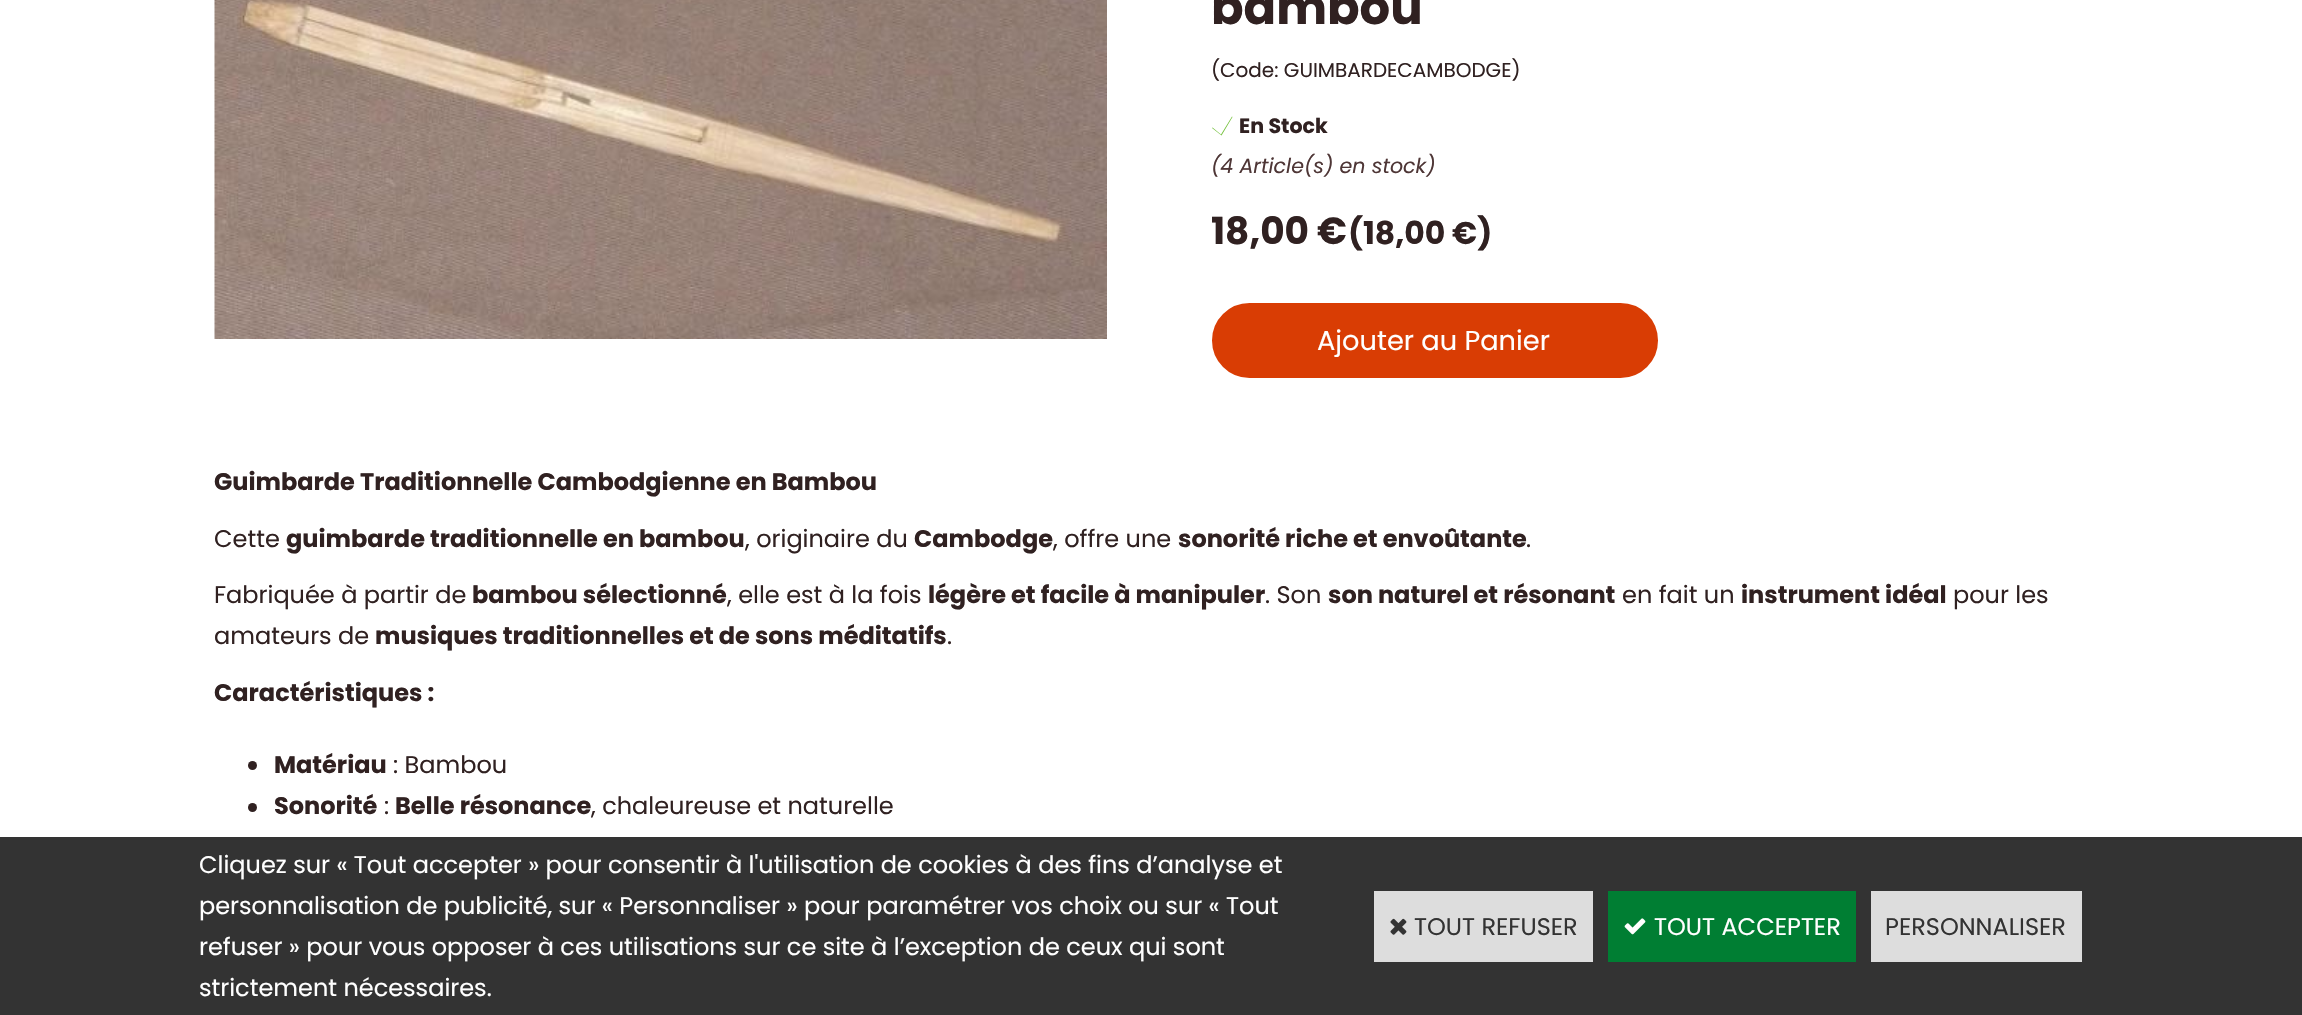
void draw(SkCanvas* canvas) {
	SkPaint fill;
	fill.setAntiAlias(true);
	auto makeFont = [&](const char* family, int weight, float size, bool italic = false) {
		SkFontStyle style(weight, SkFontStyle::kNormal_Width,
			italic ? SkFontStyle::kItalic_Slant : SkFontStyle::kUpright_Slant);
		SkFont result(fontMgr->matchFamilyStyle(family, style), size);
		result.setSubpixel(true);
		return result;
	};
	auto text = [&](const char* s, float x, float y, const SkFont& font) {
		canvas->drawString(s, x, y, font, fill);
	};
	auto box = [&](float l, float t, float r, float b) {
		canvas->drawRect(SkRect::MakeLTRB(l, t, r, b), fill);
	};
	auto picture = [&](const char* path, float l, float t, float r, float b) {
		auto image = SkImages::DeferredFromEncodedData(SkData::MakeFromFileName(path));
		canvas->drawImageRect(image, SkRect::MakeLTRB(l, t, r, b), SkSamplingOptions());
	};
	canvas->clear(0xFFFFFFFF);
	picture("image0.png", 214, 0, 1107, 339);
	fill.setColor(0xFF74C13B);
	canvas->drawPath(SkPathBuilder().moveTo(1232, 116.5f).lineTo(1221, 134.5f).lineTo(1212.5f, 127.5f).lineTo(1212, 128).lineTo(1221.5f, 135.5f).lineTo(1232.5f, 117).close().detach(), fill);
	fill.setColor(0xFFD93D04);
	canvas->drawRoundRect(SkRect::MakeLTRB(1213, 304, 1657, 377), 36.5f, 36.5f, fill);
	fill.setStyle(SkPaint::kStroke_Style);
	fill.setStrokeWidth(2);
	canvas->drawRoundRect(SkRect::MakeLTRB(1213, 304, 1657, 377), 36.5f, 36.5f, fill);
	fill.setStyle(SkPaint::kFill_Style);
	fill.setColor(0xFF302121);
	canvas->drawCircle(252.5f, 765.5f, 4.5f, fill);
	canvas->drawCircle(252.5f, 807.5f, 4.5f, fill);
	fill.setColor(0xFF333333);
	box(0, 837, 2302, 1015);
	fill.setColor(0xFFDDDDDD);
	box(1374, 891, 1593, 962);
	picture("image1.png", 1390, 918, 1407, 935);
	fill.setColor(0xFF007E33);
	box(1608, 891, 1856, 962);
	picture("image2.png", 1624, 918, 1646, 935);
	fill.setColor(0xFFDDDDDD);
	box(1871, 891, 2082, 962);
	auto font1 = makeFont("Poppins", 700, 48);
	fill.setColor(0xFF302121);
	text("bambou", 1211, 24, font1);
	auto font2 = makeFont("Poppins", 400, 20);
	text("(Code: GUIMBARDECAMBODGE)", 1211, 77, font2);
	auto font3 = makeFont("Poppins", 700, 20.6f);
	text("En Stock", 1239, 133, font3);
	auto font4 = makeFont("Poppins", 400, 20.6f, true);
	fill.setColor(0xFF4E3636);
	text("(4 Article(s) en stock)", 1211, 173, font4);
	auto font5 = makeFont("Poppins", 700, 37.5f);
	fill.setColor(0xFF302121);
	text("18,00 €", 1211, 244, font5);
	auto font6 = makeFont("Poppins", 700, 31.5f);
	text("(18,00 €)", 1348, 244, font6);
	auto font7 = makeFont("Poppins", 400, 27.25f);
	fill.setColor(0xFFFFFFFF);
	text("Ajouter au Panier", 1317, 350, font7);
	auto font8 = makeFont("Poppins", 700, 24);
	fill.setColor(0xFF302121);
	text("Guimbarde Traditionnelle Cambodgienne en Bambou", 214, 490, font8);
	auto font9 = makeFont("Poppins", 400, 24);
	text("Cette", 214, 547, font9);
	text("guimbarde traditionnelle en bambou", 286, 547, font8);
	text(", originaire du", 745, 547, font9);
	text("Cambodge", 914, 547, font8);
	text(", offre une", 1053, 547, font9);
	text("sonorité riche et envoûtante", 1178, 547, font8);
	text(".", 1526, 547, font9);
	text("Fabriquée à partir de", 214, 603, font9);
	text("bambou sélectionné", 472, 603, font8);
	text(", elle est à la fois", 727, 603, font9);
	text("légère et facile à manipuler", 928, 603, font8);
	text(". Son", 1265, 603, font9);
	text("son naturel et résonant", 1328, 603, font8);
	text("en fait un", 1622, 603, font9);
	text("instrument idéal", 1741, 603, font8);
	text("pour les", 1953, 603, font9);
	text("amateurs de", 214, 644, font9);
	text("musiques traditionnelles et de sons méditatifs", 375, 644, font8);
	text(".", 947, 644, font9);
	text("Caractéristiques :", 214, 701, font8);
	text("Matériau", 274, 773, font8);
	text(": Bambou", 393, 773, font9);
	text("Sonorité", 274, 814, font8);
	text(":", 384, 814, font9);
	text("Belle résonance", 395, 814, font8);
	text(", chaleureuse et naturelle", 591, 814, font9);
	fill.setColor(0xFFFFFFFF);
	text("Cliquez sur « Tout accepter » pour consentir à l'utilisation de cookies à des fins d’analyse et", 199, 873, font9);
	text("personnalisation de publicité, sur « Personnaliser » pour paramétrer vos choix ou sur « Tout", 199, 914, font9);
	text("refuser » pour vous opposer à ces utilisations sur ce site à l’exception de ceux qui sont", 199, 955, font9);
	text("strictement nécessaires.", 199, 996, font9);
	fill.setColor(0xFF333333);
	text("TOUT REFUSER", 1414, 935, font9);
	fill.setColor(0xFFFFFFFF);
	text("TOUT ACCEPTER", 1654, 935, font9);
	fill.setColor(0xFF333333);
	text("PERSONNALISER", 1885, 935, font9);
}
